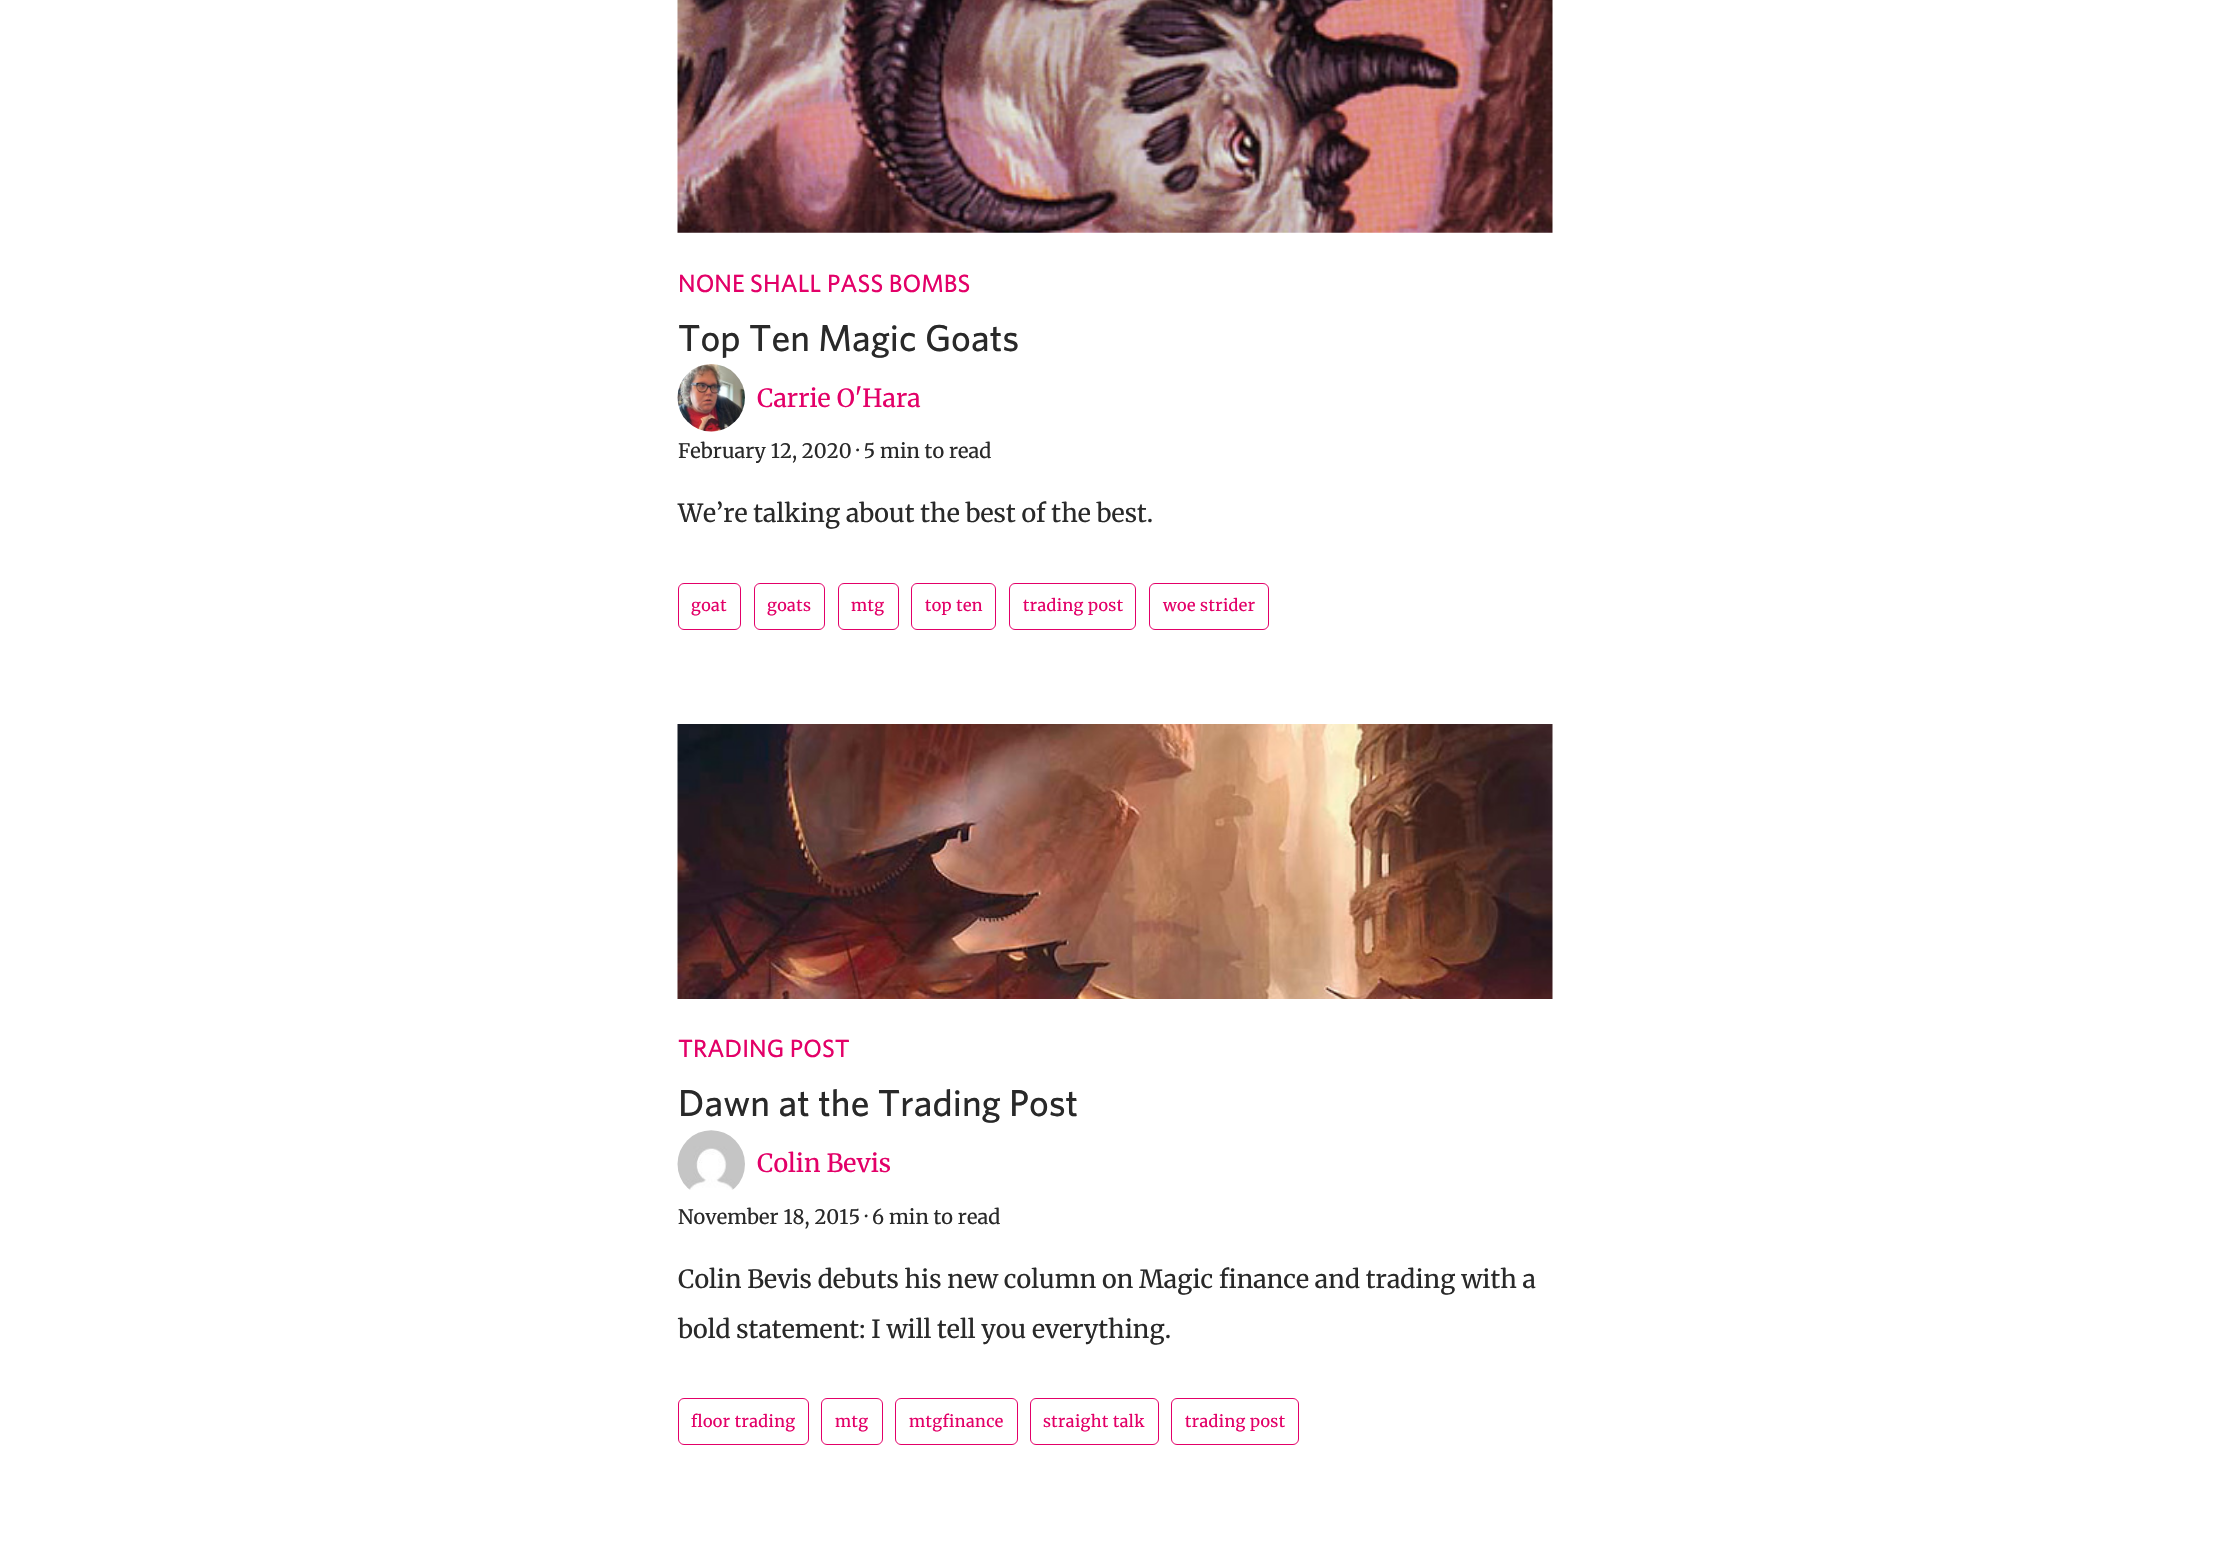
void draw(SkCanvas* canvas) {
	SkPaint fill;
	fill.setAntiAlias(true);
	auto makeFont = [&](const char* family, int weight, float size, bool italic = false) {
		SkFontStyle style(weight, SkFontStyle::kNormal_Width,
			italic ? SkFontStyle::kItalic_Slant : SkFontStyle::kUpright_Slant);
		SkFont result(fontMgr->matchFamilyStyle(family, style), size);
		result.setSubpixel(true);
		return result;
	};
	auto spacedText = [&](const char* s, float x, float y, const SkFont& font, const SkPaint& ink, float letter, float word) {
		std::vector<SkGlyphID> glyphs(font.countText(s, strlen(s), SkTextEncoding::kUTF8));
		std::vector<float> xs(glyphs.size());
		font.textToGlyphs(s, strlen(s), SkTextEncoding::kUTF8, glyphs);
		font.getXPos(glyphs, xs, x);
		float extra = 0;
		for (size_t i = 0; i < glyphs.size(); i++) {
			xs[i] += extra;
			extra += letter + word * (glyphs[i] == font.unicharToGlyph(' '));
		}
		canvas->drawTextBlob(SkTextBlob::MakeFromPosHGlyphs(glyphs, xs, y, font), 0, 0, ink);
	};
	auto picture = [&](const char* path, float l, float t, float r, float b) {
		auto image = SkImages::DeferredFromEncodedData(SkData::MakeFromFileName(path));
		canvas->drawImageRect(image, SkRect::MakeLTRB(l, t, r, b), SkSamplingOptions());
	};
	canvas->clear(0xFFFFFFFF);
	picture("image0.png", 677, 0, 1553, 233);
	picture("image1.png", 677, 364, 745, 432);
	fill.setStyle(SkPaint::kStroke_Style);
	fill.setStrokeWidth(1);
	fill.setColor(0xFFE30068);
	canvas->drawRoundRect(SkRect::MakeLTRB(678.5f, 583.5f, 740.5f, 629.5f), 5.5f, 5.5f, fill);
	canvas->drawRoundRect(SkRect::MakeLTRB(754.5f, 583.5f, 824.5f, 629.5f), 5.5f, 5.5f, fill);
	canvas->drawRoundRect(SkRect::MakeLTRB(838.5f, 583.5f, 898.5f, 629.5f), 5.5f, 5.5f, fill);
	canvas->drawRoundRect(SkRect::MakeLTRB(911.5f, 583.5f, 995.5f, 629.5f), 5.5f, 5.5f, fill);
	canvas->drawRoundRect(SkRect::MakeLTRB(1009.5f, 583.5f, 1135.5f, 629.5f), 5.5f, 5.5f, fill);
	canvas->drawRoundRect(SkRect::MakeLTRB(1149.5f, 583.5f, 1268.5f, 629.5f), 5.5f, 5.5f, fill);
	picture("image2.png", 677, 724, 1553, 999);
	picture("image3.png", 677, 1130, 745, 1190);
	canvas->drawRoundRect(SkRect::MakeLTRB(678.5f, 1398.5f, 808.5f, 1444.5f), 5.5f, 5.5f, fill);
	canvas->drawRoundRect(SkRect::MakeLTRB(821.5f, 1398.5f, 882.5f, 1444.5f), 5.5f, 5.5f, fill);
	canvas->drawRoundRect(SkRect::MakeLTRB(895.5f, 1398.5f, 1017.5f, 1444.5f), 5.5f, 5.5f, fill);
	canvas->drawRoundRect(SkRect::MakeLTRB(1030.5f, 1398.5f, 1158.5f, 1444.5f), 5.5f, 5.5f, fill);
	canvas->drawRoundRect(SkRect::MakeLTRB(1171.5f, 1398.5f, 1298.5f, 1444.5f), 5.5f, 5.5f, fill);
	auto font1 = makeFont("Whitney", 500, 25);
	fill.setStyle(SkPaint::kFill_Style);
	spacedText("NONE SHALL PASS BOMBS", 678, 292, font1, fill, 0.05f, 0);
	auto font2 = makeFont("Whitney", 500, 37.5f);
	fill.setColor(0xFF292929);
	spacedText("Top Ten Magic Goats", 678, 351, font2, fill, 0.05f, 0);
	auto font3 = makeFont("Merriweather", 400, 25);
	fill.setColor(0xFFE30068);
	spacedText("Carrie O'Hara", 757, 407, font3, fill, 0.05f, 0);
	auto font4 = makeFont("Merriweather", 400, 20);
	fill.setColor(0xFF292929);
	spacedText("February 12, 2020 · 5 min to read", 678, 458, font4, fill, 0.05f, 0);
	spacedText("We’re talking about the best of the best.", 678, 522, font3, fill, 0.05f, -0.25f);
	auto font5 = makeFont("Merriweather", 400, 16.25f);
	fill.setColor(0xFFE30068);
	spacedText("goat", 691, 611, font5, fill, 0.4f, 0);
	spacedText("goats", 767, 611, font5, fill, 0.4f, 0);
	spacedText("mtg", 851, 611, font5, fill, 0.4f, 0);
	spacedText("top ten", 925, 611, font5, fill, 0.4f, 0);
	spacedText("trading post", 1023, 611, font5, fill, 0.4f, 0);
	spacedText("woe strider", 1163, 611, font5, fill, 0.4f, 0);
	spacedText("TRADING POST", 678, 1057, font1, fill, 0.05f, 0);
	fill.setColor(0xFF292929);
	spacedText("Dawn at the Trading Post", 678, 1116, font2, fill, 0.05f, 0);
	fill.setColor(0xFFE30068);
	spacedText("Colin Bevis", 757, 1172, font3, fill, 0.05f, 0);
	fill.setColor(0xFF292929);
	spacedText("November 18, 2015 · 6 min to read", 678, 1224, font4, fill, 0.05f, 0);
	spacedText("Colin Bevis debuts his new column on Magic finance and trading with a", 678, 1288, font3, fill, 0.05f, -0.25f);
	spacedText("bold statement: I will tell you everything.", 678, 1338, font3, fill, 0.05f, -0.25f);
	fill.setColor(0xFFE30068);
	spacedText("floor trading", 691, 1427, font5, fill, 0.4f, 0);
	spacedText("mtg", 835, 1427, font5, fill, 0.4f, 0);
	spacedText("mtgfinance", 909, 1427, font5, fill, 0.4f, 0);
	spacedText("straight talk", 1043, 1427, font5, fill, 0.4f, 0);
	spacedText("trading post", 1185, 1427, font5, fill, 0.4f, 0);
}
